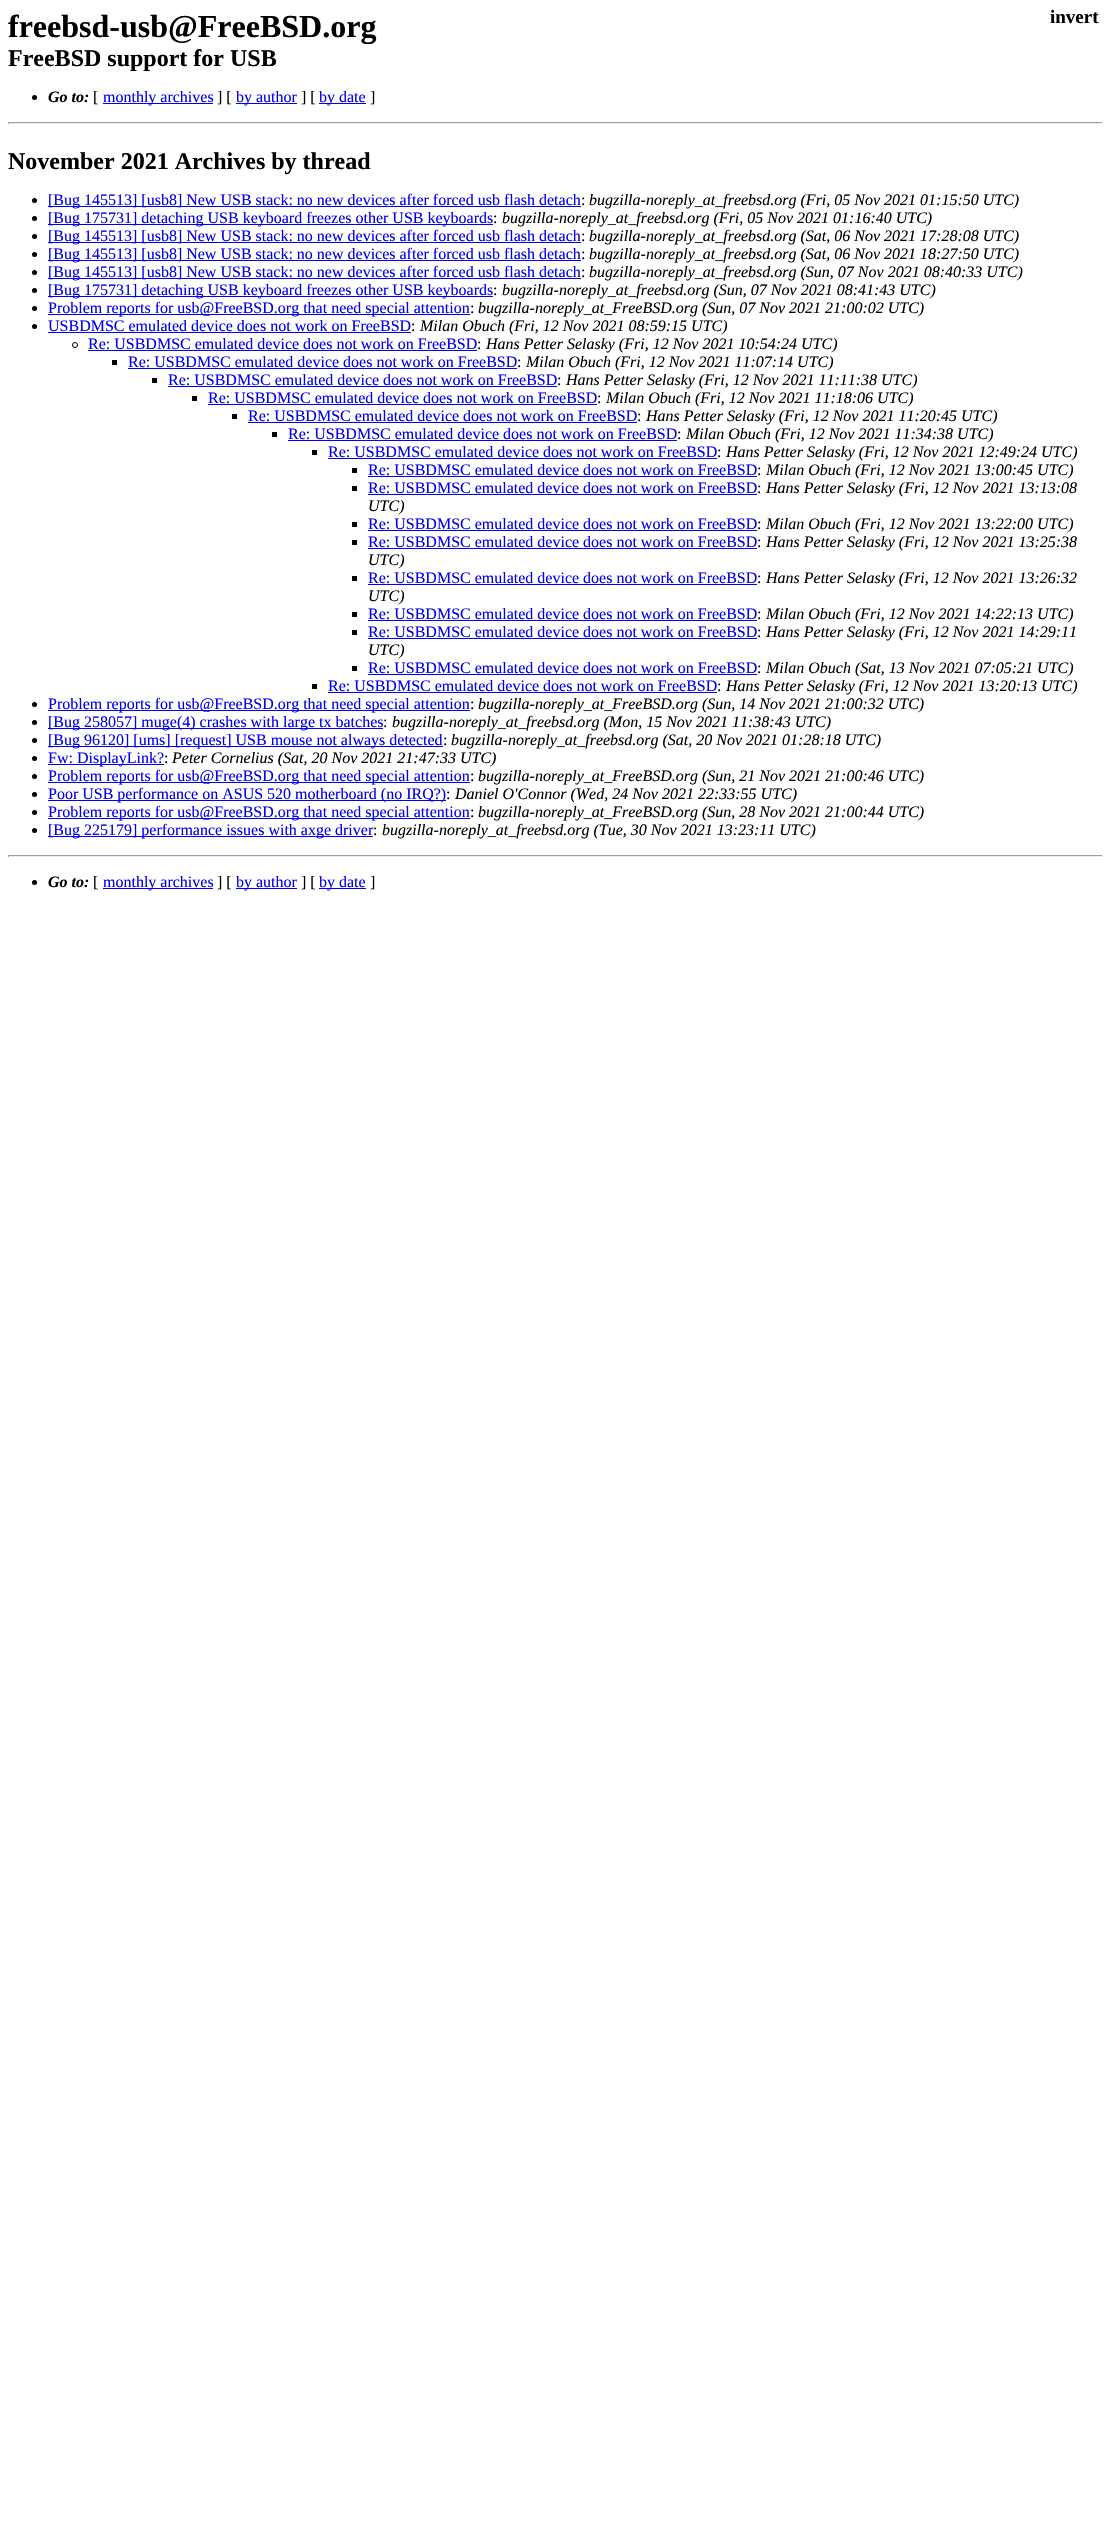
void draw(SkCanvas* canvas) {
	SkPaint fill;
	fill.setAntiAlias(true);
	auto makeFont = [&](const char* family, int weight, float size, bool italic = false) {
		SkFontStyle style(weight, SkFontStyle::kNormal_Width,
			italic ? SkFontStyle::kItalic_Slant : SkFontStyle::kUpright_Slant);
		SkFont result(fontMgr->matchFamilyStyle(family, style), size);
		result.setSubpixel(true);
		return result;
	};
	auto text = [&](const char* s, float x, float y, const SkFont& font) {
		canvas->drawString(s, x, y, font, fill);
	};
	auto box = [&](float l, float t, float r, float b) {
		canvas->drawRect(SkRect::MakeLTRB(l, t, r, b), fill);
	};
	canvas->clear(0xFFFFFFFF);
	fill.setColor(0xFF000000);
	canvas->drawCircle(34.5f, 97.5f, 2.5f, fill);
	fill.setColor(0xFF0000EE);
	box(103, 103, 213, 104);
	box(236, 103, 297, 104);
	box(319, 103, 366, 104);
	fill.setColor(0xFF9F9F9F);
	box(8, 122, 1103, 123);
	fill.setColor(0xFFEEEEEE);
	box(1102, 122, 1103, 124);
	box(8, 123, 1103, 124);
	fill.setColor(0xFF9F9F9F);
	box(8, 122, 9, 124);
	fill.setColor(0xFF000000);
	canvas->drawCircle(34.5f, 200.5f, 2.5f, fill);
	fill.setColor(0xFF0000EE);
	box(48, 206, 581, 207);
	fill.setColor(0xFF000000);
	canvas->drawCircle(34.5f, 218.5f, 2.5f, fill);
	fill.setColor(0xFF0000EE);
	box(48, 224, 493, 225);
	fill.setColor(0xFF000000);
	canvas->drawCircle(34.5f, 236.5f, 2.5f, fill);
	fill.setColor(0xFF0000EE);
	box(48, 242, 581, 243);
	fill.setColor(0xFF000000);
	canvas->drawCircle(34.5f, 254.5f, 2.5f, fill);
	fill.setColor(0xFF0000EE);
	box(48, 260, 581, 261);
	fill.setColor(0xFF000000);
	canvas->drawCircle(34.5f, 272.5f, 2.5f, fill);
	fill.setColor(0xFF0000EE);
	box(48, 278, 581, 279);
	fill.setColor(0xFF000000);
	canvas->drawCircle(34.5f, 290.5f, 2.5f, fill);
	fill.setColor(0xFF0000EE);
	box(48, 296, 493, 297);
	fill.setColor(0xFF000000);
	canvas->drawCircle(34.5f, 308.5f, 2.5f, fill);
	fill.setColor(0xFF0000EE);
	box(48, 314, 470, 315);
	fill.setColor(0xFF000000);
	canvas->drawCircle(34.5f, 326.5f, 2.5f, fill);
	fill.setColor(0xFF0000EE);
	box(48, 332, 411, 333);
	fill.setStyle(SkPaint::kStroke_Style);
	fill.setStrokeWidth(1);
	fill.setColor(0xFF000000);
	canvas->drawCircle(75, 345, 2.5f, fill);
	fill.setStyle(SkPaint::kFill_Style);
	fill.setColor(0xFF0000EE);
	box(88, 350, 477, 351);
	fill.setColor(0xFF000000);
	box(112, 360, 117, 365);
	fill.setColor(0xFF0000EE);
	box(128, 368, 517, 369);
	fill.setColor(0xFF000000);
	box(152, 378, 157, 383);
	fill.setColor(0xFF0000EE);
	box(168, 386, 557, 387);
	fill.setColor(0xFF000000);
	box(192, 396, 197, 401);
	fill.setColor(0xFF0000EE);
	box(208, 404, 597, 405);
	fill.setColor(0xFF000000);
	box(232, 414, 237, 419);
	fill.setColor(0xFF0000EE);
	box(248, 422, 637, 423);
	fill.setColor(0xFF000000);
	box(272, 432, 277, 437);
	fill.setColor(0xFF0000EE);
	box(288, 440, 677, 441);
	fill.setColor(0xFF000000);
	box(312, 450, 317, 455);
	fill.setColor(0xFF0000EE);
	box(328, 458, 717, 459);
	fill.setColor(0xFF000000);
	box(352, 468, 357, 473);
	fill.setColor(0xFF0000EE);
	box(368, 476, 757, 477);
	fill.setColor(0xFF000000);
	box(352, 486, 357, 491);
	fill.setColor(0xFF0000EE);
	box(368, 494, 757, 495);
	fill.setColor(0xFF000000);
	box(352, 522, 357, 527);
	fill.setColor(0xFF0000EE);
	box(368, 530, 757, 531);
	fill.setColor(0xFF000000);
	box(352, 540, 357, 545);
	fill.setColor(0xFF0000EE);
	box(368, 548, 757, 549);
	fill.setColor(0xFF000000);
	box(352, 576, 357, 581);
	fill.setColor(0xFF0000EE);
	box(368, 584, 757, 585);
	fill.setColor(0xFF000000);
	box(352, 612, 357, 617);
	fill.setColor(0xFF0000EE);
	box(368, 620, 757, 621);
	fill.setColor(0xFF000000);
	box(352, 630, 357, 635);
	fill.setColor(0xFF0000EE);
	box(368, 638, 757, 639);
	fill.setColor(0xFF000000);
	box(352, 666, 357, 671);
	fill.setColor(0xFF0000EE);
	box(368, 674, 757, 675);
	fill.setColor(0xFF000000);
	box(312, 684, 317, 689);
	fill.setColor(0xFF0000EE);
	box(328, 692, 717, 693);
	fill.setColor(0xFF000000);
	canvas->drawCircle(34.5f, 704.5f, 2.5f, fill);
	fill.setColor(0xFF0000EE);
	box(48, 710, 470, 711);
	fill.setColor(0xFF000000);
	canvas->drawCircle(34.5f, 722.5f, 2.5f, fill);
	fill.setColor(0xFF0000EE);
	box(48, 728, 383, 729);
	fill.setColor(0xFF000000);
	canvas->drawCircle(34.5f, 740.5f, 2.5f, fill);
	fill.setColor(0xFF0000EE);
	box(48, 746, 443, 747);
	fill.setColor(0xFF000000);
	canvas->drawCircle(34.5f, 758.5f, 2.5f, fill);
	fill.setColor(0xFF0000EE);
	box(48, 764, 164, 765);
	fill.setColor(0xFF000000);
	canvas->drawCircle(34.5f, 776.5f, 2.5f, fill);
	fill.setColor(0xFF0000EE);
	box(48, 782, 470, 783);
	fill.setColor(0xFF000000);
	canvas->drawCircle(34.5f, 794.5f, 2.5f, fill);
	fill.setColor(0xFF0000EE);
	box(48, 800, 446, 801);
	fill.setColor(0xFF000000);
	canvas->drawCircle(34.5f, 812.5f, 2.5f, fill);
	fill.setColor(0xFF0000EE);
	box(48, 818, 470, 819);
	fill.setColor(0xFF000000);
	canvas->drawCircle(34.5f, 830.5f, 2.5f, fill);
	fill.setColor(0xFF0000EE);
	box(48, 836, 373, 837);
	fill.setColor(0xFF9F9F9F);
	box(8, 855, 1103, 856);
	fill.setColor(0xFFEEEEEE);
	box(1102, 855, 1103, 857);
	box(8, 856, 1103, 857);
	fill.setColor(0xFF9F9F9F);
	box(8, 855, 9, 857);
	fill.setColor(0xFF000000);
	canvas->drawCircle(34.5f, 882.5f, 2.5f, fill);
	fill.setColor(0xFF0000EE);
	box(103, 888, 213, 889);
	box(236, 888, 297, 889);
	box(319, 888, 366, 889);
	auto font1 = makeFont("Liberation Serif", 700, 32);
	fill.setColor(0xFF000000);
	text("freebsd-usb@FreeBSD.org", 8, 37, font1);
	auto font2 = makeFont("Liberation Serif", 700, 24);
	text("FreeBSD support for USB", 8, 66, font2);
	auto font3 = makeFont("Liberation Serif", 700, 19);
	text("invert", 1050, 23, font3);
	auto font4 = makeFont("Liberation Serif", 700, 16, true);
	text("Go to:", 48, 102, font4);
	auto font5 = makeFont("Liberation Serif", 400, 16);
	text("[", 93, 102, font5);
	fill.setColor(0xFF0000EE);
	text("monthly archives", 103, 102, font5);
	fill.setColor(0xFF000000);
	text("] [", 217, 102, font5);
	fill.setColor(0xFF0000EE);
	text("by author", 236, 102, font5);
	fill.setColor(0xFF000000);
	text("] [", 301, 102, font5);
	fill.setColor(0xFF0000EE);
	text("by date", 319, 102, font5);
	fill.setColor(0xFF000000);
	text("]", 370, 102, font5);
	text("November 2021 Archives by thread", 8, 169, font2);
	fill.setColor(0xFF0000EE);
	text("[Bug 145513] [usb8] New USB stack: no new devices after forced usb flash detach", 48, 205, font5);
	fill.setColor(0xFF000000);
	text(":", 581, 205, font5);
	auto font6 = makeFont("Liberation Serif", 400, 16, true);
	text("bugzilla-noreply_at_freebsd.org (Fri, 05 Nov 2021 01:15:50 UTC)", 589, 205, font6);
	fill.setColor(0xFF0000EE);
	text("[Bug 175731] detaching USB keyboard freezes other USB keyboards", 48, 223, font5);
	fill.setColor(0xFF000000);
	text(":", 493, 223, font5);
	text("bugzilla-noreply_at_freebsd.org (Fri, 05 Nov 2021 01:16:40 UTC)", 502, 223, font6);
	fill.setColor(0xFF0000EE);
	text("[Bug 145513] [usb8] New USB stack: no new devices after forced usb flash detach", 48, 241, font5);
	fill.setColor(0xFF000000);
	text(":", 581, 241, font5);
	text("bugzilla-noreply_at_freebsd.org (Sat, 06 Nov 2021 17:28:08 UTC)", 589, 241, font6);
	fill.setColor(0xFF0000EE);
	text("[Bug 145513] [usb8] New USB stack: no new devices after forced usb flash detach", 48, 259, font5);
	fill.setColor(0xFF000000);
	text(":", 581, 259, font5);
	text("bugzilla-noreply_at_freebsd.org (Sat, 06 Nov 2021 18:27:50 UTC)", 589, 259, font6);
	fill.setColor(0xFF0000EE);
	text("[Bug 145513] [usb8] New USB stack: no new devices after forced usb flash detach", 48, 277, font5);
	fill.setColor(0xFF000000);
	text(":", 581, 277, font5);
	text("bugzilla-noreply_at_freebsd.org (Sun, 07 Nov 2021 08:40:33 UTC)", 589, 277, font6);
	fill.setColor(0xFF0000EE);
	text("[Bug 175731] detaching USB keyboard freezes other USB keyboards", 48, 295, font5);
	fill.setColor(0xFF000000);
	text(":", 493, 295, font5);
	text("bugzilla-noreply_at_freebsd.org (Sun, 07 Nov 2021 08:41:43 UTC)", 502, 295, font6);
	fill.setColor(0xFF0000EE);
	text("Problem reports for usb@FreeBSD.org that need special attention", 48, 313, font5);
	fill.setColor(0xFF000000);
	text(":", 470, 313, font5);
	text("bugzilla-noreply_at_FreeBSD.org (Sun, 07 Nov 2021 21:00:02 UTC)", 478, 313, font6);
	fill.setColor(0xFF0000EE);
	text("USBDMSC emulated device does not work on FreeBSD", 48, 331, font5);
	fill.setColor(0xFF000000);
	text(":", 411, 331, font5);
	text("Milan Obuch (Fri, 12 Nov 2021 08:59:15 UTC)", 420, 331, font6);
	fill.setColor(0xFF0000EE);
	text("Re: USBDMSC emulated device does not work on FreeBSD", 88, 349, font5);
	fill.setColor(0xFF000000);
	text(":", 477, 349, font5);
	text("Hans Petter Selasky (Fri, 12 Nov 2021 10:54:24 UTC)", 486, 349, font6);
	fill.setColor(0xFF0000EE);
	text("Re: USBDMSC emulated device does not work on FreeBSD", 128, 367, font5);
	fill.setColor(0xFF000000);
	text(":", 517, 367, font5);
	text("Milan Obuch (Fri, 12 Nov 2021 11:07:14 UTC)", 526, 367, font6);
	fill.setColor(0xFF0000EE);
	text("Re: USBDMSC emulated device does not work on FreeBSD", 168, 385, font5);
	fill.setColor(0xFF000000);
	text(":", 557, 385, font5);
	text("Hans Petter Selasky (Fri, 12 Nov 2021 11:11:38 UTC)", 566, 385, font6);
	fill.setColor(0xFF0000EE);
	text("Re: USBDMSC emulated device does not work on FreeBSD", 208, 403, font5);
	fill.setColor(0xFF000000);
	text(":", 597, 403, font5);
	text("Milan Obuch (Fri, 12 Nov 2021 11:18:06 UTC)", 606, 403, font6);
	fill.setColor(0xFF0000EE);
	text("Re: USBDMSC emulated device does not work on FreeBSD", 248, 421, font5);
	fill.setColor(0xFF000000);
	text(":", 637, 421, font5);
	text("Hans Petter Selasky (Fri, 12 Nov 2021 11:20:45 UTC)", 646, 421, font6);
	fill.setColor(0xFF0000EE);
	text("Re: USBDMSC emulated device does not work on FreeBSD", 288, 439, font5);
	fill.setColor(0xFF000000);
	text(":", 677, 439, font5);
	text("Milan Obuch (Fri, 12 Nov 2021 11:34:38 UTC)", 686, 439, font6);
	fill.setColor(0xFF0000EE);
	text("Re: USBDMSC emulated device does not work on FreeBSD", 328, 457, font5);
	fill.setColor(0xFF000000);
	text(":", 717, 457, font5);
	text("Hans Petter Selasky (Fri, 12 Nov 2021 12:49:24 UTC)", 726, 457, font6);
	fill.setColor(0xFF0000EE);
	text("Re: USBDMSC emulated device does not work on FreeBSD", 368, 475, font5);
	fill.setColor(0xFF000000);
	text(":", 757, 475, font5);
	text("Milan Obuch (Fri, 12 Nov 2021 13:00:45 UTC)", 766, 475, font6);
	fill.setColor(0xFF0000EE);
	text("Re: USBDMSC emulated device does not work on FreeBSD", 368, 493, font5);
	fill.setColor(0xFF000000);
	text(":", 757, 493, font5);
	text("Hans Petter Selasky (Fri, 12 Nov 2021 13:13:08", 766, 493, font6);
	text("UTC)", 368, 511, font6);
	fill.setColor(0xFF0000EE);
	text("Re: USBDMSC emulated device does not work on FreeBSD", 368, 529, font5);
	fill.setColor(0xFF000000);
	text(":", 757, 529, font5);
	text("Milan Obuch (Fri, 12 Nov 2021 13:22:00 UTC)", 766, 529, font6);
	fill.setColor(0xFF0000EE);
	text("Re: USBDMSC emulated device does not work on FreeBSD", 368, 547, font5);
	fill.setColor(0xFF000000);
	text(":", 757, 547, font5);
	text("Hans Petter Selasky (Fri, 12 Nov 2021 13:25:38", 766, 547, font6);
	text("UTC)", 368, 565, font6);
	fill.setColor(0xFF0000EE);
	text("Re: USBDMSC emulated device does not work on FreeBSD", 368, 583, font5);
	fill.setColor(0xFF000000);
	text(":", 757, 583, font5);
	text("Hans Petter Selasky (Fri, 12 Nov 2021 13:26:32", 766, 583, font6);
	text("UTC)", 368, 601, font6);
	fill.setColor(0xFF0000EE);
	text("Re: USBDMSC emulated device does not work on FreeBSD", 368, 619, font5);
	fill.setColor(0xFF000000);
	text(":", 757, 619, font5);
	text("Milan Obuch (Fri, 12 Nov 2021 14:22:13 UTC)", 766, 619, font6);
	fill.setColor(0xFF0000EE);
	text("Re: USBDMSC emulated device does not work on FreeBSD", 368, 637, font5);
	fill.setColor(0xFF000000);
	text(":", 757, 637, font5);
	text("Hans Petter Selasky (Fri, 12 Nov 2021 14:29:11", 766, 637, font6);
	text("UTC)", 368, 655, font6);
	fill.setColor(0xFF0000EE);
	text("Re: USBDMSC emulated device does not work on FreeBSD", 368, 673, font5);
	fill.setColor(0xFF000000);
	text(":", 757, 673, font5);
	text("Milan Obuch (Sat, 13 Nov 2021 07:05:21 UTC)", 766, 673, font6);
	fill.setColor(0xFF0000EE);
	text("Re: USBDMSC emulated device does not work on FreeBSD", 328, 691, font5);
	fill.setColor(0xFF000000);
	text(":", 717, 691, font5);
	text("Hans Petter Selasky (Fri, 12 Nov 2021 13:20:13 UTC)", 726, 691, font6);
	fill.setColor(0xFF0000EE);
	text("Problem reports for usb@FreeBSD.org that need special attention", 48, 709, font5);
	fill.setColor(0xFF000000);
	text(":", 470, 709, font5);
	text("bugzilla-noreply_at_FreeBSD.org (Sun, 14 Nov 2021 21:00:32 UTC)", 478, 709, font6);
	fill.setColor(0xFF0000EE);
	text("[Bug 258057] muge(4) crashes with large tx batches", 48, 727, font5);
	fill.setColor(0xFF000000);
	text(":", 383, 727, font5);
	text("bugzilla-noreply_at_freebsd.org (Mon, 15 Nov 2021 11:38:43 UTC)", 392, 727, font6);
	fill.setColor(0xFF0000EE);
	text("[Bug 96120] [ums] [request] USB mouse not always detected", 48, 745, font5);
	fill.setColor(0xFF000000);
	text(":", 443, 745, font5);
	text("bugzilla-noreply_at_freebsd.org (Sat, 20 Nov 2021 01:28:18 UTC)", 451, 745, font6);
	fill.setColor(0xFF0000EE);
	text("Fw: DisplayLink?", 48, 763, font5);
	fill.setColor(0xFF000000);
	text(":", 164, 763, font5);
	text("Peter Cornelius (Sat, 20 Nov 2021 21:47:33 UTC)", 172, 763, font6);
	fill.setColor(0xFF0000EE);
	text("Problem reports for usb@FreeBSD.org that need special attention", 48, 781, font5);
	fill.setColor(0xFF000000);
	text(":", 470, 781, font5);
	text("bugzilla-noreply_at_FreeBSD.org (Sun, 21 Nov 2021 21:00:46 UTC)", 478, 781, font6);
	fill.setColor(0xFF0000EE);
	text("Poor USB performance on ASUS 520 motherboard (no IRQ?)", 48, 799, font5);
	fill.setColor(0xFF000000);
	text(":", 446, 799, font5);
	text("Daniel O'Connor (Wed, 24 Nov 2021 22:33:55 UTC)", 455, 799, font6);
	fill.setColor(0xFF0000EE);
	text("Problem reports for usb@FreeBSD.org that need special attention", 48, 817, font5);
	fill.setColor(0xFF000000);
	text(":", 470, 817, font5);
	text("bugzilla-noreply_at_FreeBSD.org (Sun, 28 Nov 2021 21:00:44 UTC)", 478, 817, font6);
	fill.setColor(0xFF0000EE);
	text("[Bug 225179] performance issues with axge driver", 48, 835, font5);
	fill.setColor(0xFF000000);
	text(":", 373, 835, font5);
	text("bugzilla-noreply_at_freebsd.org (Tue, 30 Nov 2021 13:23:11 UTC)", 382, 835, font6);
	text("Go to:", 48, 887, font4);
	text("[", 93, 887, font5);
	fill.setColor(0xFF0000EE);
	text("monthly archives", 103, 887, font5);
	fill.setColor(0xFF000000);
	text("] [", 217, 887, font5);
	fill.setColor(0xFF0000EE);
	text("by author", 236, 887, font5);
	fill.setColor(0xFF000000);
	text("] [", 301, 887, font5);
	fill.setColor(0xFF0000EE);
	text("by date", 319, 887, font5);
	fill.setColor(0xFF000000);
	text("]", 370, 887, font5);
}
